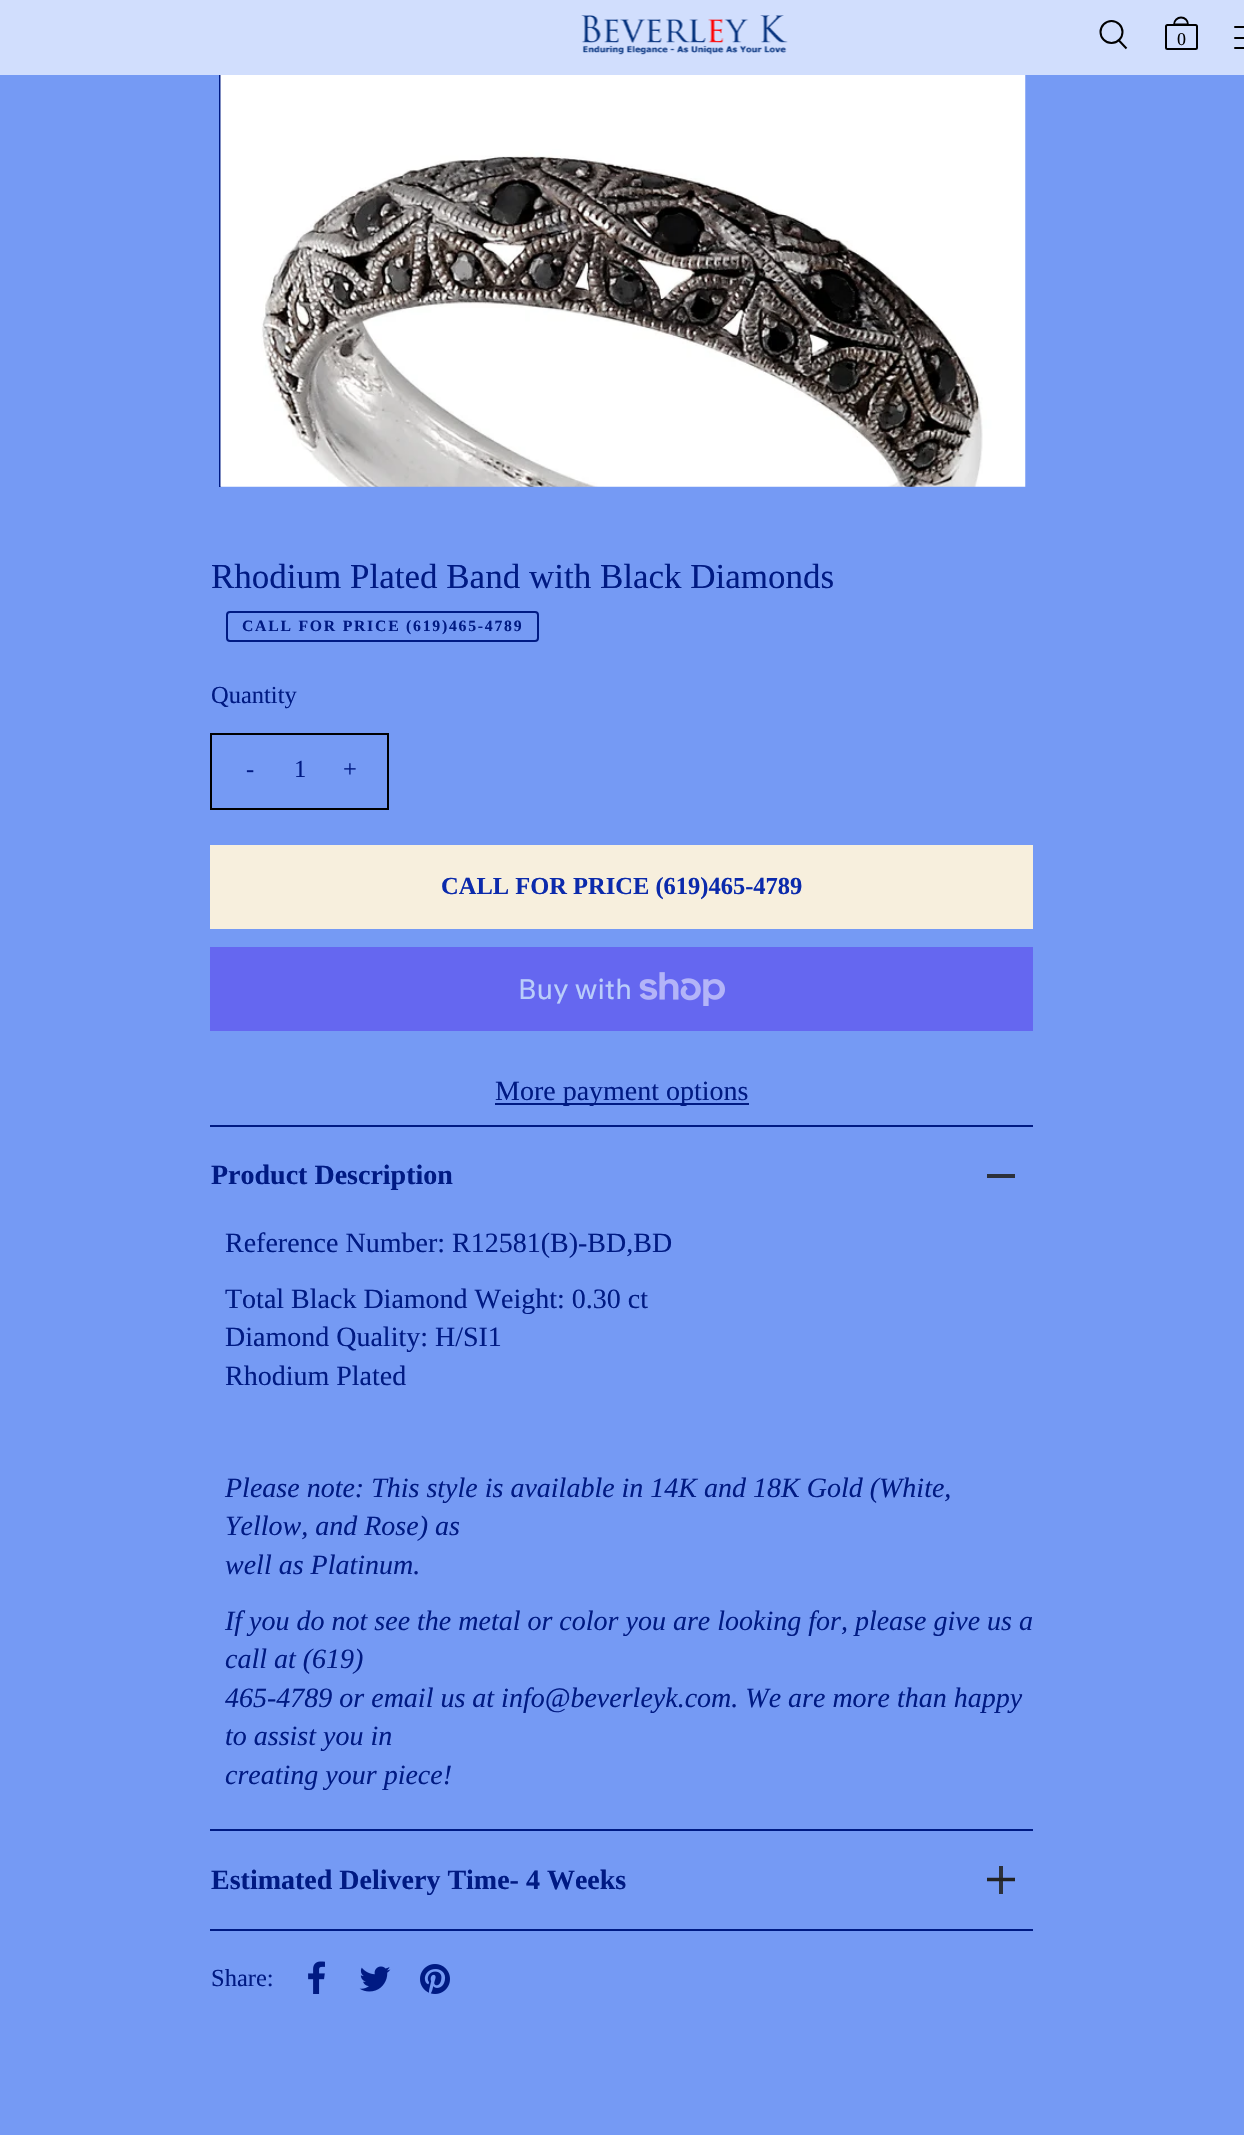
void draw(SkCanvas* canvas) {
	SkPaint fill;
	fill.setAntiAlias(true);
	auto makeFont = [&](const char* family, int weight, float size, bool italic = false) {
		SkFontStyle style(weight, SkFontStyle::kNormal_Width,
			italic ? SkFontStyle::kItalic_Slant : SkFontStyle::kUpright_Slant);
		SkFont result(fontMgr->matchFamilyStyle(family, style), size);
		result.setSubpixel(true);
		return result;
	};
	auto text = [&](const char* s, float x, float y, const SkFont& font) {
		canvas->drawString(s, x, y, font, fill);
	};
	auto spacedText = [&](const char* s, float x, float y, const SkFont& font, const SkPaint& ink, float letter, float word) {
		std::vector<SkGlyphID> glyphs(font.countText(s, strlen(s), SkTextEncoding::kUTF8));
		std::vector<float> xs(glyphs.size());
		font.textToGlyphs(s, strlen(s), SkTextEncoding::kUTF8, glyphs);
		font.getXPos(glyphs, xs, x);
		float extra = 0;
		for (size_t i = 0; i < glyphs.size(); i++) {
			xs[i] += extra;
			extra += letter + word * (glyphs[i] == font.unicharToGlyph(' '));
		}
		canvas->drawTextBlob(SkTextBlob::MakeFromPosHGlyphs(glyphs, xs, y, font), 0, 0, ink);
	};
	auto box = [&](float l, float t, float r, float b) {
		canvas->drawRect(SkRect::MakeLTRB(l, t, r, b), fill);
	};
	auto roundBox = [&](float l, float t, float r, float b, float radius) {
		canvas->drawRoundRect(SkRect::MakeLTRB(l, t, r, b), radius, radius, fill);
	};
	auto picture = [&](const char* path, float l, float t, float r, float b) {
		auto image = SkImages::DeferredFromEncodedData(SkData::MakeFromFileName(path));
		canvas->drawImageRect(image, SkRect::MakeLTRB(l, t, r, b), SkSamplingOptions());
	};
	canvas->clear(0xFF759AF4);
	fill.setStyle(SkPaint::kStroke_Style);
	fill.setStrokeWidth(2);
	fill.setColor(0xFF001A83);
	canvas->drawRoundRect(SkRect::MakeLTRB(227, 612, 538, 641), 3, 3, fill);
	fill.setColor(0xFF000000);
	canvas->drawRect(SkRect::MakeLTRB(211, 734, 388, 809), fill);
	canvas->save();
	canvas->clipRect(SkRect::MakeLTRB(219, 0, 1026, 487));
	fill.setColor(0xFF001A83);
	canvas->drawRect(SkRect::MakeLTRB(220, -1, 1028, 769), fill);
	canvas->restore();
	fill.setStyle(SkPaint::kFill_Style);
	fill.setColor(0xFFD1DEFD);
	box(0, 0, 1244, 75);
	picture("image0.png", 581, 15, 788, 55);
	fill.setStyle(SkPaint::kStroke_Style);
	fill.setColor(0xFF000000);
	canvas->drawCircle(1111.5f, 32, 11, fill);
	canvas->drawPath(SkPathBuilder().moveTo(1118, 39.5f).lineTo(1126.5f, 48.5f).detach(), fill);
	fill.setStrokeWidth(1.8f);
	canvas->drawPath(SkPathBuilder().moveTo(1181, 17.5f).cubicTo(1185, 17.5f, 1188, 20.5f, 1188, 24.5f).lineTo(1174, 24.5f).cubicTo(1174, 20.5f, 1177.5f, 17.5f, 1181, 17.5f).close().detach(), fill);
	fill.setStrokeWidth(2);
	canvas->drawRoundRect(SkRect::MakeLTRB(1166, 25, 1197, 49), 1.5f, 1.5f, fill);
	fill.setStyle(SkPaint::kFill_Style);
	roundBox(1234, 37, 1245, 39, 1);
	roundBox(1234, 26, 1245, 28, 1);
	roundBox(1234, 47, 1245, 49, 1);
	picture("image1.png", 220, 75, 1026, 487);
	fill.setColor(0xFFF7EFDD);
	box(210, 845, 1033, 929);
	fill.setColor(0xFF6567F0);
	box(210, 947, 1033, 1031);
	picture("image2.png", 639, 972, 725, 1006);
	fill.setColor(0xFF001A83);
	box(495, 1103, 749, 1105);
	box(210, 1125, 1033, 1127);
	fill.setColor(0xFF2C313C);
	box(987, 1174, 1015, 1178);
	fill.setColor(0xFF001A83);
	box(210, 1929, 1033, 1931);
	box(210, 1829, 1033, 1831);
	fill.setColor(0xFF2C313C);
	box(999, 1866, 1003, 1894);
	fill.setStyle(SkPaint::kStroke_Style);
	fill.setStrokeWidth(3.5f);
	fill.setColor(0xFF222222);
	canvas->drawPath(SkPathBuilder().moveTo(1015, 1879.5f).lineTo(987, 1879.5f).detach(), fill);
	picture("image3.png", 308, 1961, 325, 1994);
	picture("image4.png", 359, 1966, 391, 1992);
	picture("image5.png", 420, 1964, 450, 1994);
	auto font1 = makeFont("Liberation Serif", 400, 18);
	fill.setStyle(SkPaint::kFill_Style);
	fill.setColor(0xFF000000);
	text("0", 1177, 45, font1);
	auto font2 = makeFont("Liberation Serif", 400, 35);
	fill.setColor(0xFF001A83);
	text("Rhodium Plated Band with Black Diamonds", 211, 588, font2);
	auto font3 = makeFont("Liberation Serif", 700, 15.75f);
	spacedText("CALL FOR PRICE (619)465-4789", 242, 631, font3, fill, 1.75f, 0);
	auto font4 = makeFont("Liberation Serif", 400, 24.5f);
	text("Quantity", 211, 703, font4);
	text("-", 246, 777, font4);
	text("1", 294, 777, font4);
	text("+", 343, 777, font4);
	auto font5 = makeFont("Liberation Serif", 700, 24.5f);
	fill.setColor(0xFF0B2AAC);
	text("CALL FOR PRICE (619)465-4789", 441, 894, font5);
	auto font6 = makeFont("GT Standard", 400, 28);
	fill.setColor(0xFFBACDFA);
	text("Buy with", 518, 999, font6);
	auto font7 = makeFont("Liberation Serif", 400, 28);
	fill.setColor(0xFF001A83);
	text("More payment options", 495, 1100, font7);
	auto font8 = makeFont("Liberation Serif", 700, 28);
	text("Product Description", 211, 1184, font8);
	text("Reference Number: R12581(B)-BD,BD", 225, 1252, font7);
	text("Total Black Diamond Weight: 0.30 ct", 225, 1308, font7);
	text("Diamond Quality: H/SI1", 225, 1346, font7);
	text("Rhodium Plated", 225, 1385, font7);
	auto font9 = makeFont("Liberation Serif", 400, 28, true);
	text("Please note: This style is available in 14K and 18K Gold (White,", 225, 1497, font9);
	text("Yellow, and Rose) as", 225, 1535, font9);
	text("well as Platinum.", 225, 1574, font9);
	text("If you do not see the metal or color you are looking for, please give us a", 225, 1630, font9);
	text("call at (619)", 225, 1668, font9);
	text("465-4789 or email us at info@beverleyk.com. We are more than happy", 225, 1707, font9);
	text("to assist you in", 225, 1745, font9);
	text("creating your piece!", 225, 1784, font9);
	text("Estimated Delivery Time- 4 Weeks", 211, 1889, font8);
	text("Share:", 211, 1986, font4);
}
